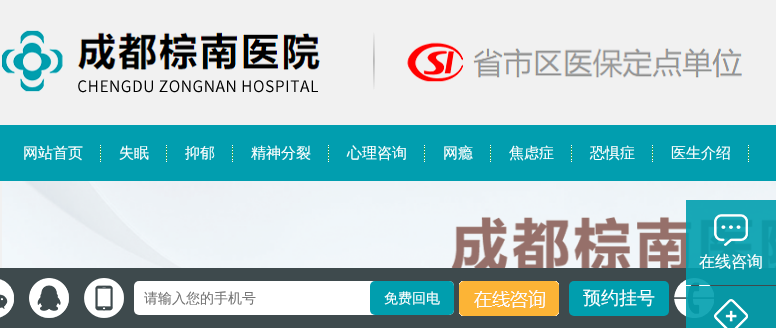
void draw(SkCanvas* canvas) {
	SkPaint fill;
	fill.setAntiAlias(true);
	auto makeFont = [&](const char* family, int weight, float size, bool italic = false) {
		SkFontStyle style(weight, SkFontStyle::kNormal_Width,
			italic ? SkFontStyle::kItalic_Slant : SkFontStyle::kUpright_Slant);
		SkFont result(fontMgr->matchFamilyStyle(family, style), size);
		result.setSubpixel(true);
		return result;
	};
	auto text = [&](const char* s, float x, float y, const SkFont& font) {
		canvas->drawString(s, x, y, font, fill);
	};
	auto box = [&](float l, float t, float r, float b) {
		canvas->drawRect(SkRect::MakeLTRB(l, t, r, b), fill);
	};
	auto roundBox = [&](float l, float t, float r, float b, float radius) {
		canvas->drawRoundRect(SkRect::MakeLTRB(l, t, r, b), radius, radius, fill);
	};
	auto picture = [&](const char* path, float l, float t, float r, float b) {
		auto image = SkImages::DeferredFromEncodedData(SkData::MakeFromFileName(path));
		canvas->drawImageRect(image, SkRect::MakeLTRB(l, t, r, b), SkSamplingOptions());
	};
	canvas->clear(0xFFF1F1F1);
	picture("image0.png", 2, 30, 742, 93);
	fill.setColor(0xFF019EAF);
	box(0, 125, 776, 181);
	picture("image1.png", 100, 145, 101, 162);
	picture("image1.png", 166, 145, 167, 162);
	picture("image1.png", 232, 145, 233, 162);
	picture("image1.png", 328, 145, 329, 162);
	picture("image1.png", 424, 145, 425, 162);
	picture("image1.png", 490, 145, 491, 162);
	picture("image1.png", 571, 145, 572, 162);
	picture("image1.png", 652, 145, 653, 162);
	picture("image1.png", 748, 145, 749, 162);
	picture("image2.png", 2, 181, 776, 268);
	fill.setColor(0xFF3E4A4D);
	box(0, 268, 776, 328);
	picture("image9.png", 674, 278, 714, 318);
	fill.setColor(0xE6009EAE);
	box(686, 200, 776, 285);
	picture("image3.png", 714, 214, 748, 246);
	box(686, 286, 776, 328);
	picture("image4.png", 714, 299, 748, 328);
	picture("image5.png", 0, 279, 14, 318);
	picture("image6.png", 29, 278, 69, 318);
	picture("image7.png", 84, 278, 124, 318);
	fill.setColor(0xFFFFFFFF);
	roundBox(134, 281, 454, 315, 5);
	fill.setColor(0xFF009EAE);
	roundBox(370, 281, 454, 315, 5);
	picture("image8.png", 459, 281, 559, 316);
	roundBox(569, 281, 669, 316, 5);
	auto font1 = makeFont("WenQuanYi Zen Hei", 500, 15);
	fill.setColor(0xFFFFFFFF);
	text("网站首页", 23, 158, font1);
	text("失眠", 119, 158, font1);
	text("抑郁", 185, 158, font1);
	text("精神分裂", 251, 158, font1);
	text("心理咨询", 347, 158, font1);
	text("网瘾", 443, 158, font1);
	text("焦虑症", 509, 158, font1);
	text("恐惧症", 590, 158, font1);
	text("医生介绍", 671, 158, font1);
	auto font2 = makeFont("WenQuanYi Zen Hei", 500, 16);
	text("在线咨询", 699, 267, font2);
	auto font3 = makeFont("WenQuanYi Zen Hei", 500, 14);
	fill.setColor(0xFF757575);
	text("请输入您的手机号", 144, 303, font3);
	fill.setColor(0xFFFFFFFF);
	text("免费回电", 384, 303, font3);
	auto font4 = makeFont("WenQuanYi Zen Hei", 500, 18);
	text("预约挂号", 583, 304, font4);
}
